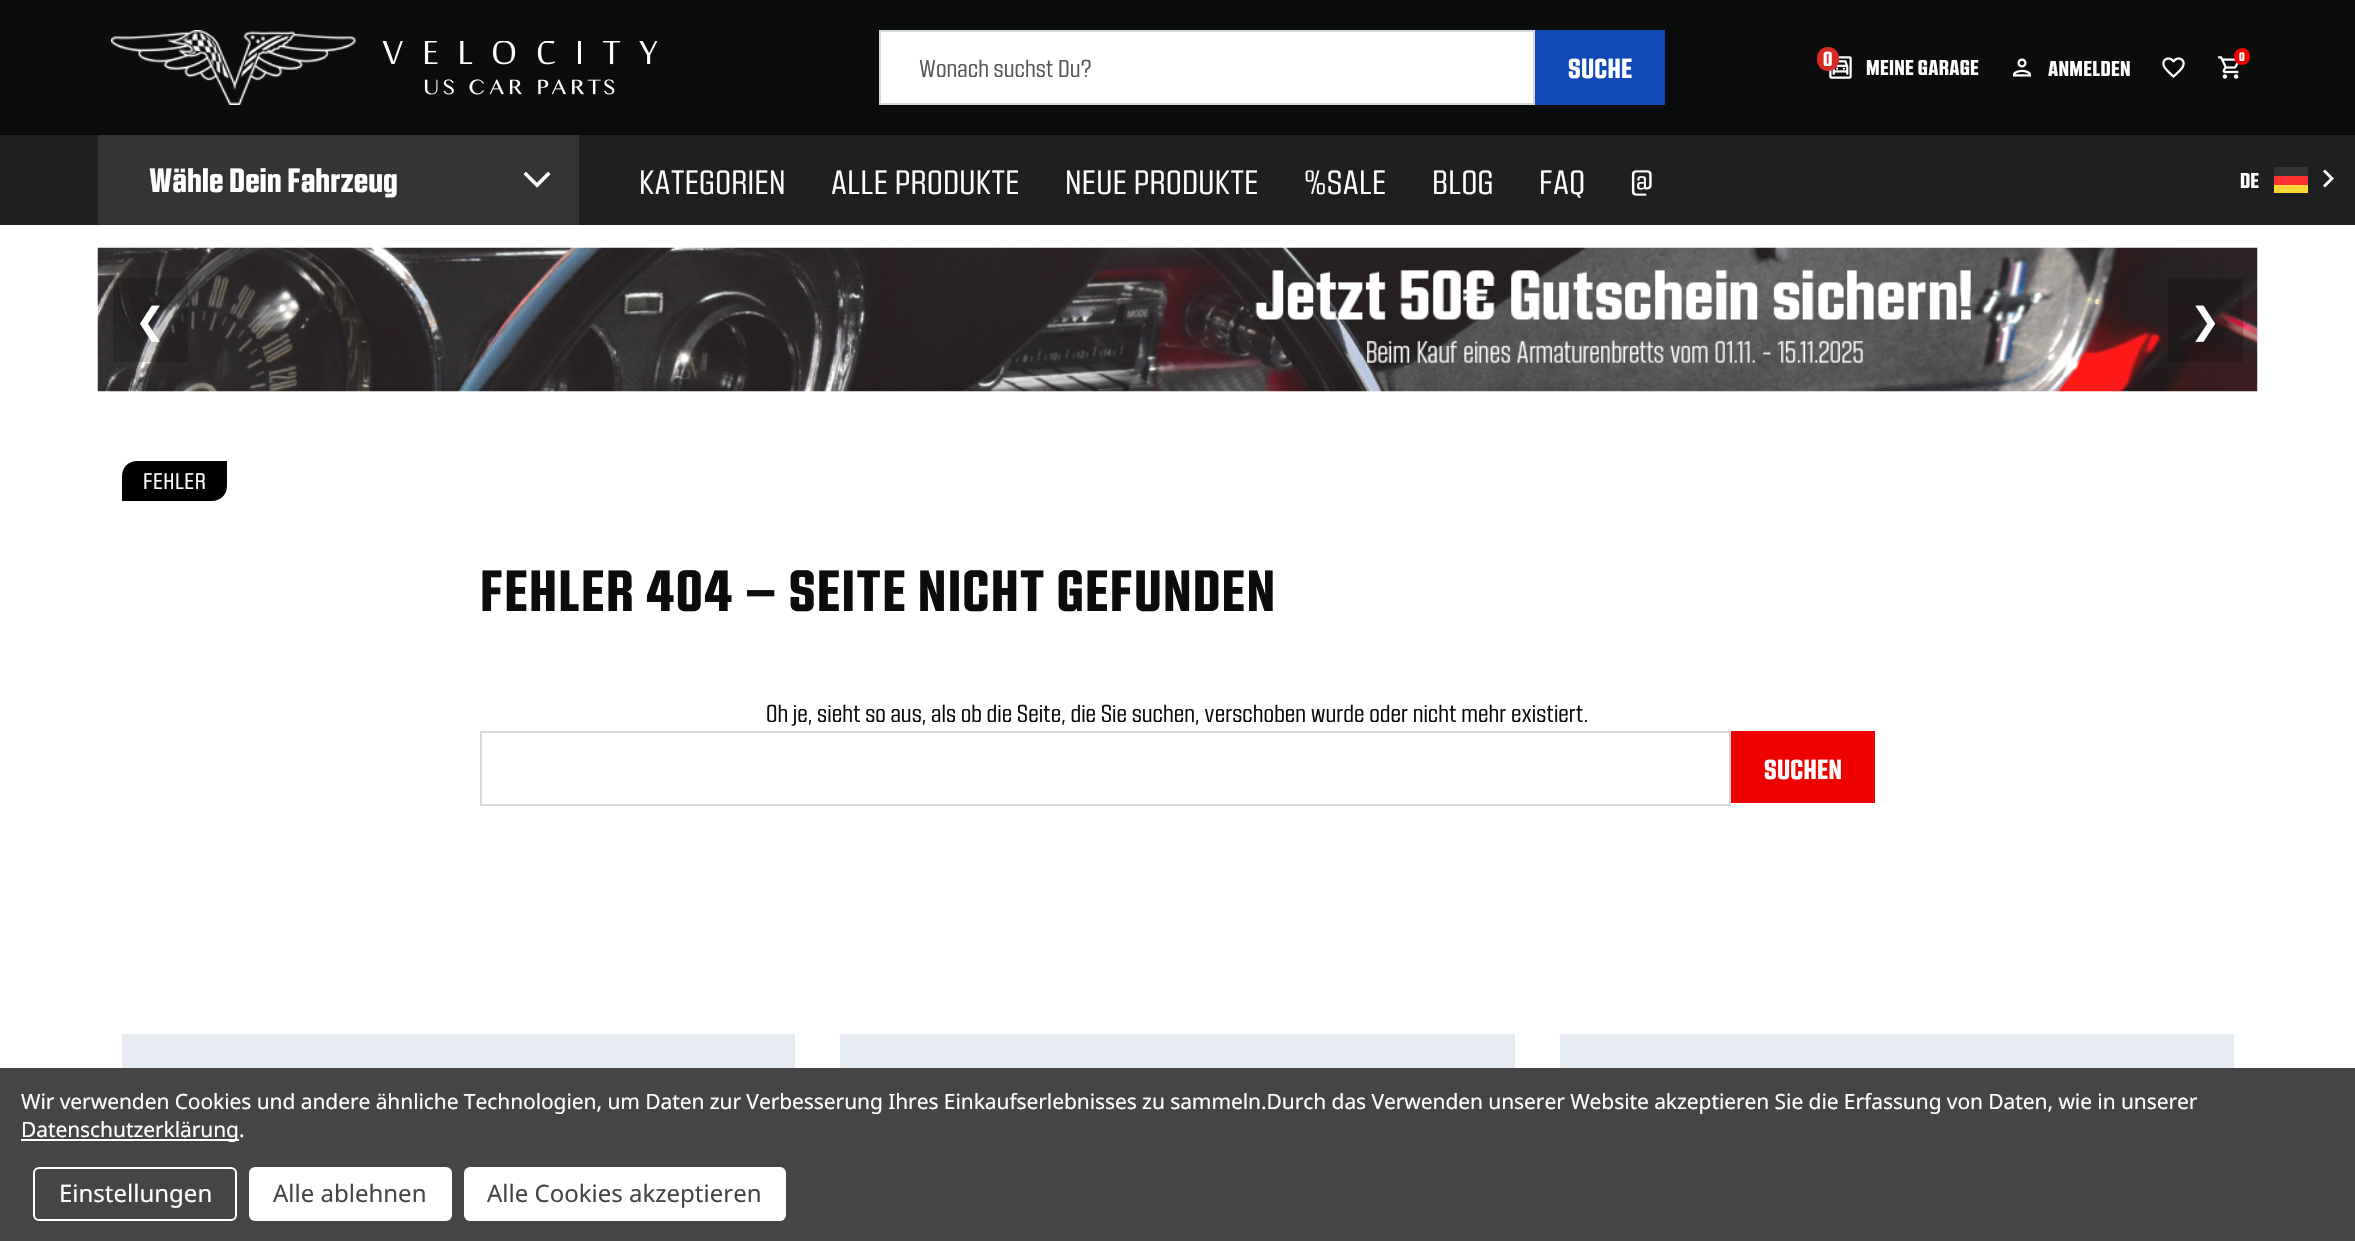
void draw(SkCanvas* canvas) {
	SkPaint fill;
	fill.setAntiAlias(true);
	auto makeFont = [&](const char* family, int weight, float size, bool italic = false) {
		SkFontStyle style(weight, SkFontStyle::kNormal_Width,
			italic ? SkFontStyle::kItalic_Slant : SkFontStyle::kUpright_Slant);
		SkFont result(fontMgr->matchFamilyStyle(family, style), size);
		result.setSubpixel(true);
		return result;
	};
	auto text = [&](const char* s, float x, float y, const SkFont& font) {
		canvas->drawString(s, x, y, font, fill);
	};
	auto spacedText = [&](const char* s, float x, float y, const SkFont& font, const SkPaint& ink, float letter, float word) {
		std::vector<SkGlyphID> glyphs(font.countText(s, strlen(s), SkTextEncoding::kUTF8));
		std::vector<float> xs(glyphs.size());
		font.textToGlyphs(s, strlen(s), SkTextEncoding::kUTF8, glyphs);
		font.getXPos(glyphs, xs, x);
		float extra = 0;
		for (size_t i = 0; i < glyphs.size(); i++) {
			xs[i] += extra;
			extra += letter + word * (glyphs[i] == font.unicharToGlyph(' '));
		}
		canvas->drawTextBlob(SkTextBlob::MakeFromPosHGlyphs(glyphs, xs, y, font), 0, 0, ink);
	};
	auto box = [&](float l, float t, float r, float b) {
		canvas->drawRect(SkRect::MakeLTRB(l, t, r, b), fill);
	};
	auto roundBox = [&](float l, float t, float r, float b, float radius) {
		canvas->drawRoundRect(SkRect::MakeLTRB(l, t, r, b), radius, radius, fill);
	};
	auto picture = [&](const char* path, float l, float t, float r, float b) {
		auto image = SkImages::DeferredFromEncodedData(SkData::MakeFromFileName(path));
		canvas->drawImageRect(image, SkRect::MakeLTRB(l, t, r, b), SkSamplingOptions());
	};
	canvas->clear(0xFFFFFFFF);
	fill.setColor(0xFF0B0C0C);
	box(0, 0, 2355, 135);
	picture("image0.png", 111, 30, 356, 105);
	picture("image1.png", 383, 41, 658, 95);
	fill.setColor(0xFFFFFFFF);
	canvas->drawRect(SkRect::MakeLTRB(880, 31, 1534, 104), fill);
	fill.setStyle(SkPaint::kStroke_Style);
	fill.setStrokeWidth(2);
	fill.setColor(0xFFD6DADF);
	canvas->drawRect(SkRect::MakeLTRB(880, 31, 1534, 104), fill);
	fill.setStyle(SkPaint::kFill_Style);
	fill.setColor(0xFF0E49B5);
	box(1535, 30, 1665, 105);
	picture("image2.png", 1829, 56, 1852, 79);
	fill.setColor(0xFFD72B25);
	roundBox(1817, 47, 1839, 71, 11);
	picture("image3.png", 2013, 58, 2031, 77);
	picture("image4.png", 2162, 57, 2185, 78);
	picture("image5.png", 2218, 56, 2239, 79);
	fill.setColor(0xFFED0101);
	roundBox(2234, 48, 2250, 65, 8);
	fill.setColor(0xFF1D1F20);
	box(0, 135, 2355, 225);
	fill.setColor(0xFF323436);
	box(98, 135, 579, 225);
	picture("image6.png", 524, 171, 551, 188);
	fill.setColor(0xFFFFD633);
	box(2274, 185, 2308, 193);
	fill.setColor(0xFF333334);
	box(2274, 167, 2308, 176);
	fill.setColor(0xFFFF3333);
	box(2274, 176, 2308, 185);
	fill.setColor(0xFFFFFFFF);
	canvas->drawPath(SkPathBuilder().moveTo(2323, 171.5f).lineTo(2330, 178.5f).lineTo(2323, 185.5f).lineTo(2325, 187.5f).lineTo(2334, 178.5f).lineTo(2325, 169.5f).close().detach(), fill);
	picture("image7.png", 97, 247, 2258, 392);
	fill.setColor(0x33000000);
	box(113, 278, 188, 362);
	box(2168, 278, 2243, 362);
	fill.setColor(0xFF000000);
	canvas->drawPath(SkPathBuilder().moveTo(137, 461).lineTo(227, 461).lineTo(227, 486).cubicTo(227, 494.5f, 220.5f, 501, 212, 501).lineTo(122, 501).lineTo(122, 476).cubicTo(122, 467.5f, 128.5f, 461, 137, 461).close().detach(), fill);
	fill.setStyle(SkPaint::kStroke_Style);
	fill.setColor(0xFFD9D9D9);
	canvas->drawRect(SkRect::MakeLTRB(481, 732, 1730, 805), fill);
	fill.setStyle(SkPaint::kFill_Style);
	fill.setColor(0xFFED0101);
	box(1731, 731, 1875, 803);
	fill.setColor(0xFFE6ECF2);
	box(122, 1034, 795, 1068);
	box(840, 1034, 1515, 1068);
	box(1560, 1034, 2234, 1068);
	fill.setColor(0xFF454545);
	box(0, 1068, 2355, 1241);
	fill.setColor(0xFFFFFFFF);
	box(21, 1139, 239, 1141);
	fill.setStyle(SkPaint::kStroke_Style);
	canvas->drawRoundRect(SkRect::MakeLTRB(34, 1168, 236, 1220), 5, 5, fill);
	fill.setStyle(SkPaint::kFill_Style);
	roundBox(249, 1167, 452, 1221, 6);
	roundBox(464, 1167, 786, 1221, 6);
	auto font1 = makeFont("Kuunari", 400, 24);
	fill.setColor(0xFF55585A);
	text("Wonach suchst Du?", 919, 77, font1);
	auto font2 = makeFont("Kuunari", 900, 27);
	fill.setColor(0xFFFFFFFF);
	spacedText("SUCHE", 1568, 78, font2, fill, 0.25f, 0);
	auto font3 = makeFont("Kuunari", 900, 20);
	spacedText("0", 1823, 66, font3, fill, 0.25f, 0);
	auto font4 = makeFont("Kuunari", 900, 21);
	spacedText("MEINE GARAGE", 1866, 75, font4, fill, 0.25f, 0);
	spacedText("ANMELDEN", 2048, 76, font4, fill, 0.25f, 0);
	auto font5 = makeFont("Kuunari", 900, 12);
	spacedText("0", 2239, 61, font5, fill, 0.25f, 0);
	auto font6 = makeFont("Kuunari", 900, 33);
	text("Wähle Dein Fahrzeug", 149, 192, font6);
	auto font7 = makeFont("Kuunari", 400, 33);
	spacedText("KATEGORIEN", 639, 194, font7, fill, 0.3f, 0);
	spacedText("ALLE PRODUKTE", 831, 194, font7, fill, 0.3f, 0);
	spacedText("NEUE PRODUKTE", 1065, 194, font7, fill, 0.3f, 0);
	spacedText("%SALE", 1304, 194, font7, fill, 0.3f, 0);
	spacedText("BLOG", 1432, 194, font7, fill, 0.3f, 0);
	spacedText("FAQ", 1539, 194, font7, fill, 0.3f, 0);
	spacedText("@", 1630, 194, font7, fill, 0.3f, 0);
	text("DE", 2240, 188, font4);
	auto font8 = makeFont("DejaVu Sans", 400, 36);
	text("❮", 135, 333, font8);
	text("❯", 2190, 333, font8);
	auto font9 = makeFont("Kuunari", 700, 21.5f);
	spacedText("FEHLER", 143, 489, font9, fill, 1, 0);
	auto font10 = makeFont("Kuunari", 900, 57);
	fill.setColor(0xFF0B0C0C);
	spacedText("FEHLER 404 – SEITE NICHT GEFUNDEN", 480, 611, font10, fill, 1.1f, 0);
	text("Oh je, sieht so aus, als ob die Seite, die Sie suchen, verschoben wurde oder nicht mehr existiert.", 766, 722, font1);
	fill.setColor(0xFFFFFFFF);
	spacedText("SUCHEN", 1764, 779, font2, fill, 0.25f, 0);
	auto font11 = makeFont("Noto Sans", 400, 21);
	spacedText("Wir verwenden Cookies und andere ähnliche Technologien, um Daten zur Verbesserung Ihres Einkaufserlebnisses zu sammeln.Durch das Verwenden unserer Website akzeptieren Sie die Erfassung von Daten, wie in unserer", 21, 1109, font11, fill, -0.08f, 0);
	spacedText("Datenschutzerklärung.", 21, 1137, font11, fill, -0.08f, 0);
	auto font12 = makeFont("Noto Sans", 400, 24);
	text("Einstellungen", 59, 1202, font12);
	fill.setColor(0xFF454545);
	text("Alle ablehnen", 273, 1202, font12);
	text("Alle Cookies akzeptieren", 487, 1202, font12);
}
